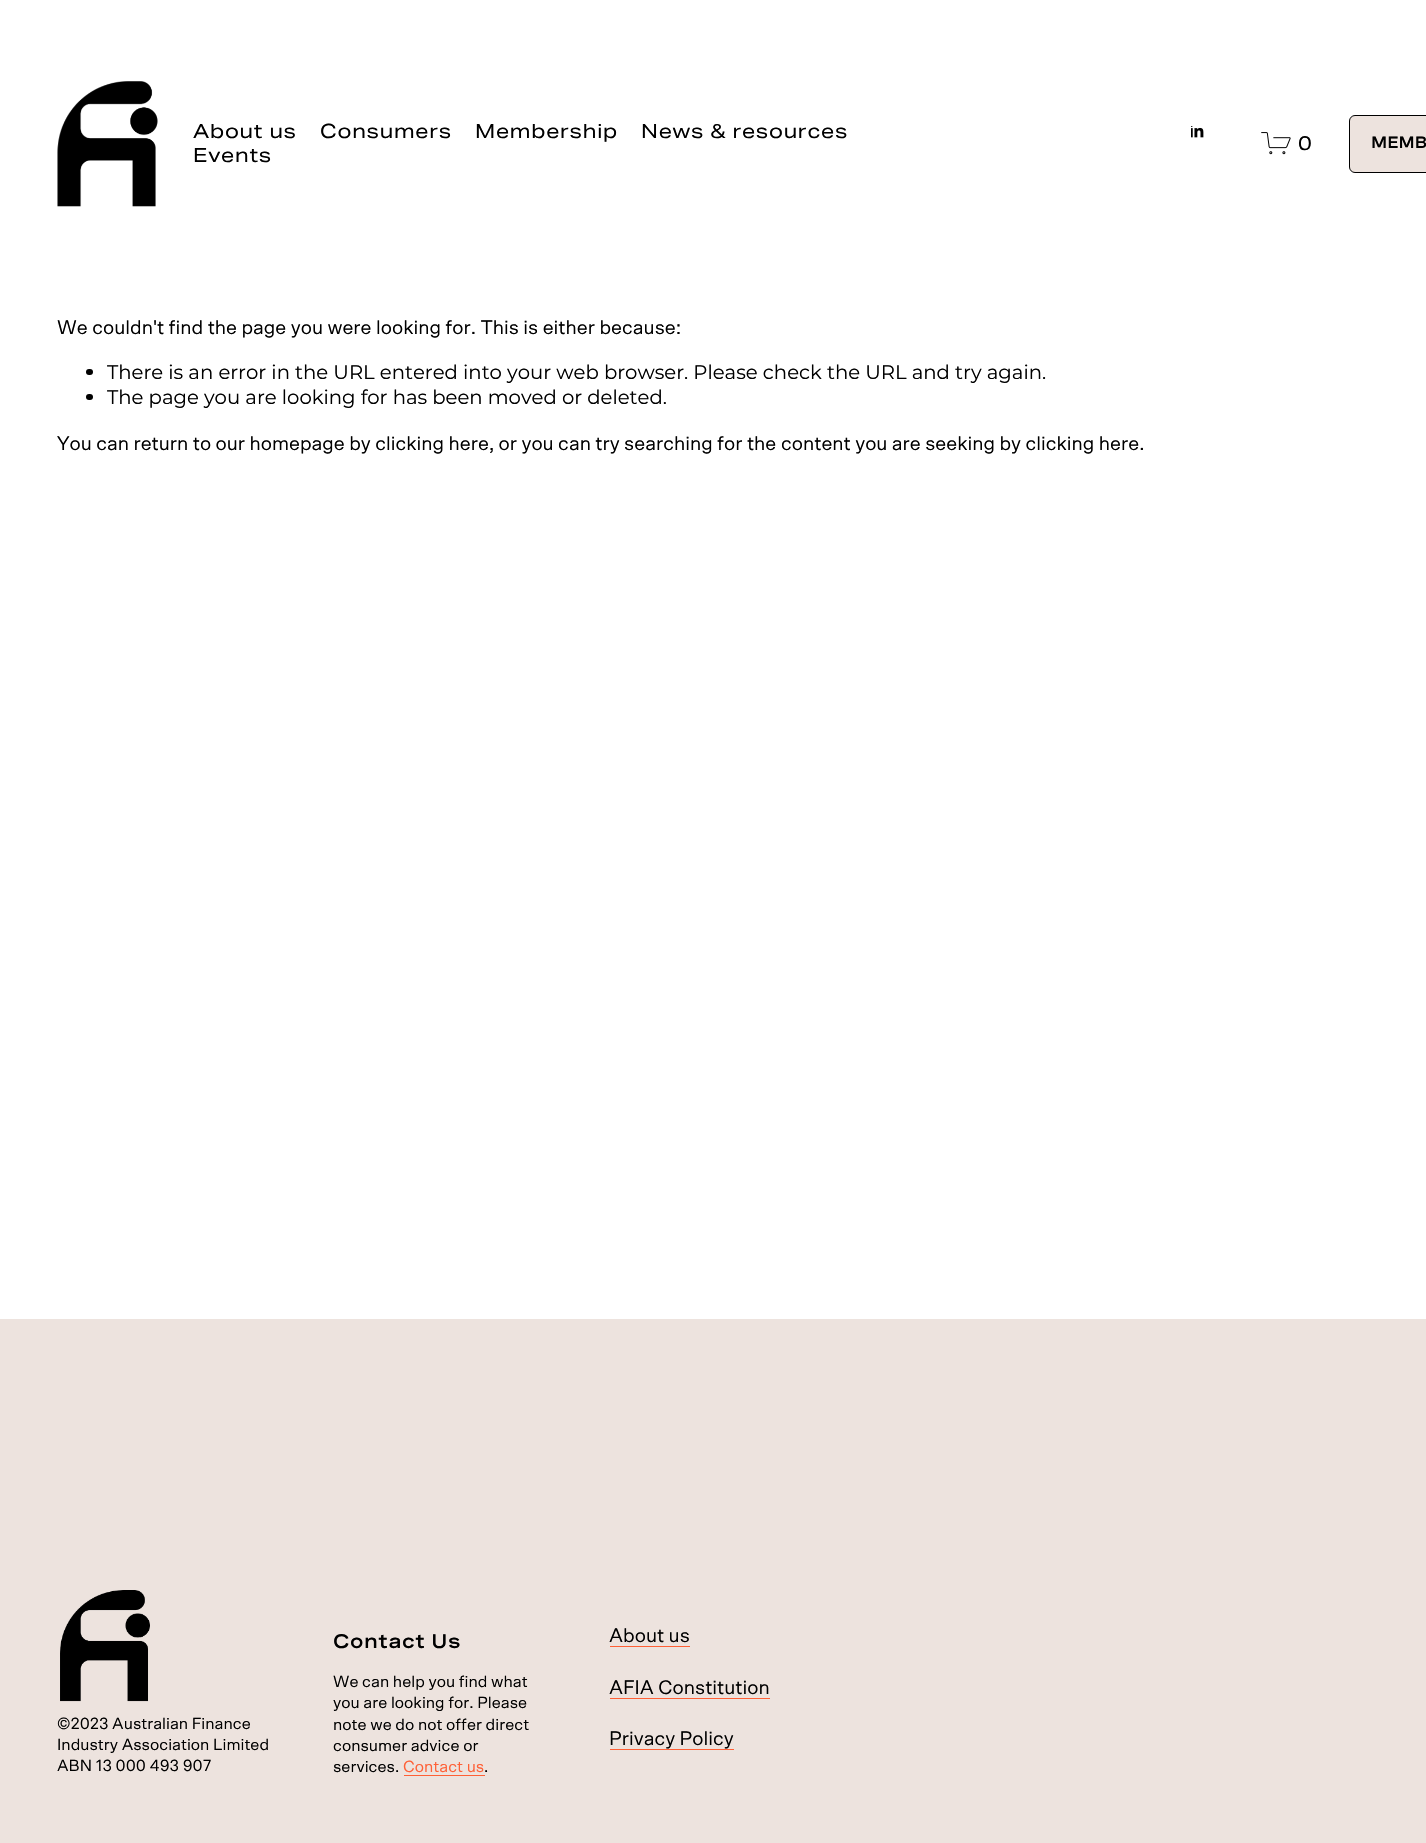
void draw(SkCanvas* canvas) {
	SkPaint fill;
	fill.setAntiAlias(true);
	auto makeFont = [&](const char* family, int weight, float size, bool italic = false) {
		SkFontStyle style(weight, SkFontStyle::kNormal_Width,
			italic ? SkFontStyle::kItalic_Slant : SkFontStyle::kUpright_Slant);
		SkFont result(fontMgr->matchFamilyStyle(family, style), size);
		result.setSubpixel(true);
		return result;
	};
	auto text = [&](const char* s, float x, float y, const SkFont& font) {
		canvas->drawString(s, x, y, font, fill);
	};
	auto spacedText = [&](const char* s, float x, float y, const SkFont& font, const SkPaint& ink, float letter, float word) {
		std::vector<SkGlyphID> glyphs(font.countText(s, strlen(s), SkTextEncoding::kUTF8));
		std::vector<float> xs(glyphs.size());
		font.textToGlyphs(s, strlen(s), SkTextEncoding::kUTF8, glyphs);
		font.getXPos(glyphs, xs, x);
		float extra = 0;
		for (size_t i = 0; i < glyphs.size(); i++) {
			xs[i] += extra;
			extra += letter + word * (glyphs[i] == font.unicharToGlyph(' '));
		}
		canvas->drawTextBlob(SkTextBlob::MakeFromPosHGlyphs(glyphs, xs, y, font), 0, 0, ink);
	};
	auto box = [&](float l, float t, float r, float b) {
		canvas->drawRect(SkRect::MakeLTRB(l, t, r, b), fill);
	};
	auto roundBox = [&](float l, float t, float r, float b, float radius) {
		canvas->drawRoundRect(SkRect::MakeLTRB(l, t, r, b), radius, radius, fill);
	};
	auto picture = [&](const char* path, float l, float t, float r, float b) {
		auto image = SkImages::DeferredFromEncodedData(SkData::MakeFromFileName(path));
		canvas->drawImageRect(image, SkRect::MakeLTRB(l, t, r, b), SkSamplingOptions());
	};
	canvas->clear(0xFFFFFFFF);
	picture("image0.png", 57, 81, 158, 207);
	picture("image1.png", 1191, 126, 1204, 138);
	picture("image2.png", 1261, 132, 1291, 155);
	fill.setColor(0xFFEDE3DE);
	canvas->drawRoundRect(SkRect::MakeLTRB(1349.5f, 115.5f, 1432.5f, 172.5f), 5.5f, 5.5f, fill);
	fill.setStyle(SkPaint::kStroke_Style);
	fill.setStrokeWidth(1);
	fill.setColor(0xFF000000);
	canvas->drawRoundRect(SkRect::MakeLTRB(1349.5f, 115.5f, 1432.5f, 172.5f), 5.5f, 5.5f, fill);
	fill.setStyle(SkPaint::kFill_Style);
	roundBox(86, 369, 93, 375, 3);
	roundBox(86, 394, 93, 400, 3);
	fill.setColor(0xFFEDE3DE);
	box(0, 1319, 1426, 1843);
	picture("image3.png", 60, 1590, 150, 1702);
	fill.setColor(0xFFFF6036);
	box(610, 1646, 690, 1647);
	box(610, 1698, 770, 1699);
	box(610, 1749, 734, 1750);
	box(404, 1775, 485, 1776);
	auto font1 = makeFont("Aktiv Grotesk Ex", 400, 19.65f);
	fill.setColor(0xFF000000);
	spacedText("About us", 193, 138, font1, fill, 0.75f, 0);
	spacedText("Consumers", 320, 138, font1, fill, 0.75f, 0);
	spacedText("Membership", 475, 138, font1, fill, 0.75f, 0);
	spacedText("News & resources", 641, 138, font1, fill, 0.75f, 0);
	spacedText("Events", 193, 162, font1, fill, 0.75f, 0);
	spacedText("0", 1298, 150, font1, fill, 0.75f, 0);
	auto font2 = makeFont("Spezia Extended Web", 600, 16.25f);
	text("MEMB", 1371, 148, font2);
	auto font3 = makeFont("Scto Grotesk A", 400, 19.65f);
	text("We couldn't find the page you were looking for. This is either because:", 57, 334, font3);
	auto font4 = makeFont("Montserrat", 400, 19.65f);
	text("There is an error in the URL entered into your web browser. Please check the URL and try again.", 107, 379, font4);
	text("The page you are looking for has been moved or deleted.", 107, 404, font4);
	text("You can return to our homepage by clicking here, or you can try searching for the", 57, 450, font3);
	text("content you are seeking by clicking here.", 781, 450, font3);
	auto font5 = makeFont("Spezia Extended Web", 600, 19.65f);
	spacedText("Contact Us", 333, 1648, font5, fill, 0.5f, 0);
	text("About us", 609, 1642, font3);
	text("AFIA Constitution", 609, 1694, font3);
	text("Privacy Policy", 609, 1745, font3);
	auto font6 = makeFont("Scto Grotesk A", 400, 16.25f);
	text("©2023 Australian Finance", 57, 1729, font6);
	text("Industry Association Limited", 57, 1750, font6);
	text("ABN 13 000 493 907", 57, 1771, font6);
	text("We can help you find what", 333, 1687, font6);
	text("you are looking for. Please", 333, 1708, font6);
	text("note we do not offer direct", 333, 1730, font6);
	text("consumer advice or", 333, 1751, font6);
	text("services.", 333, 1772, font6);
	fill.setColor(0xFFFF6036);
	text("Contact us", 403, 1772, font6);
	fill.setColor(0xFF000000);
	text(".", 484, 1772, font6);
}
